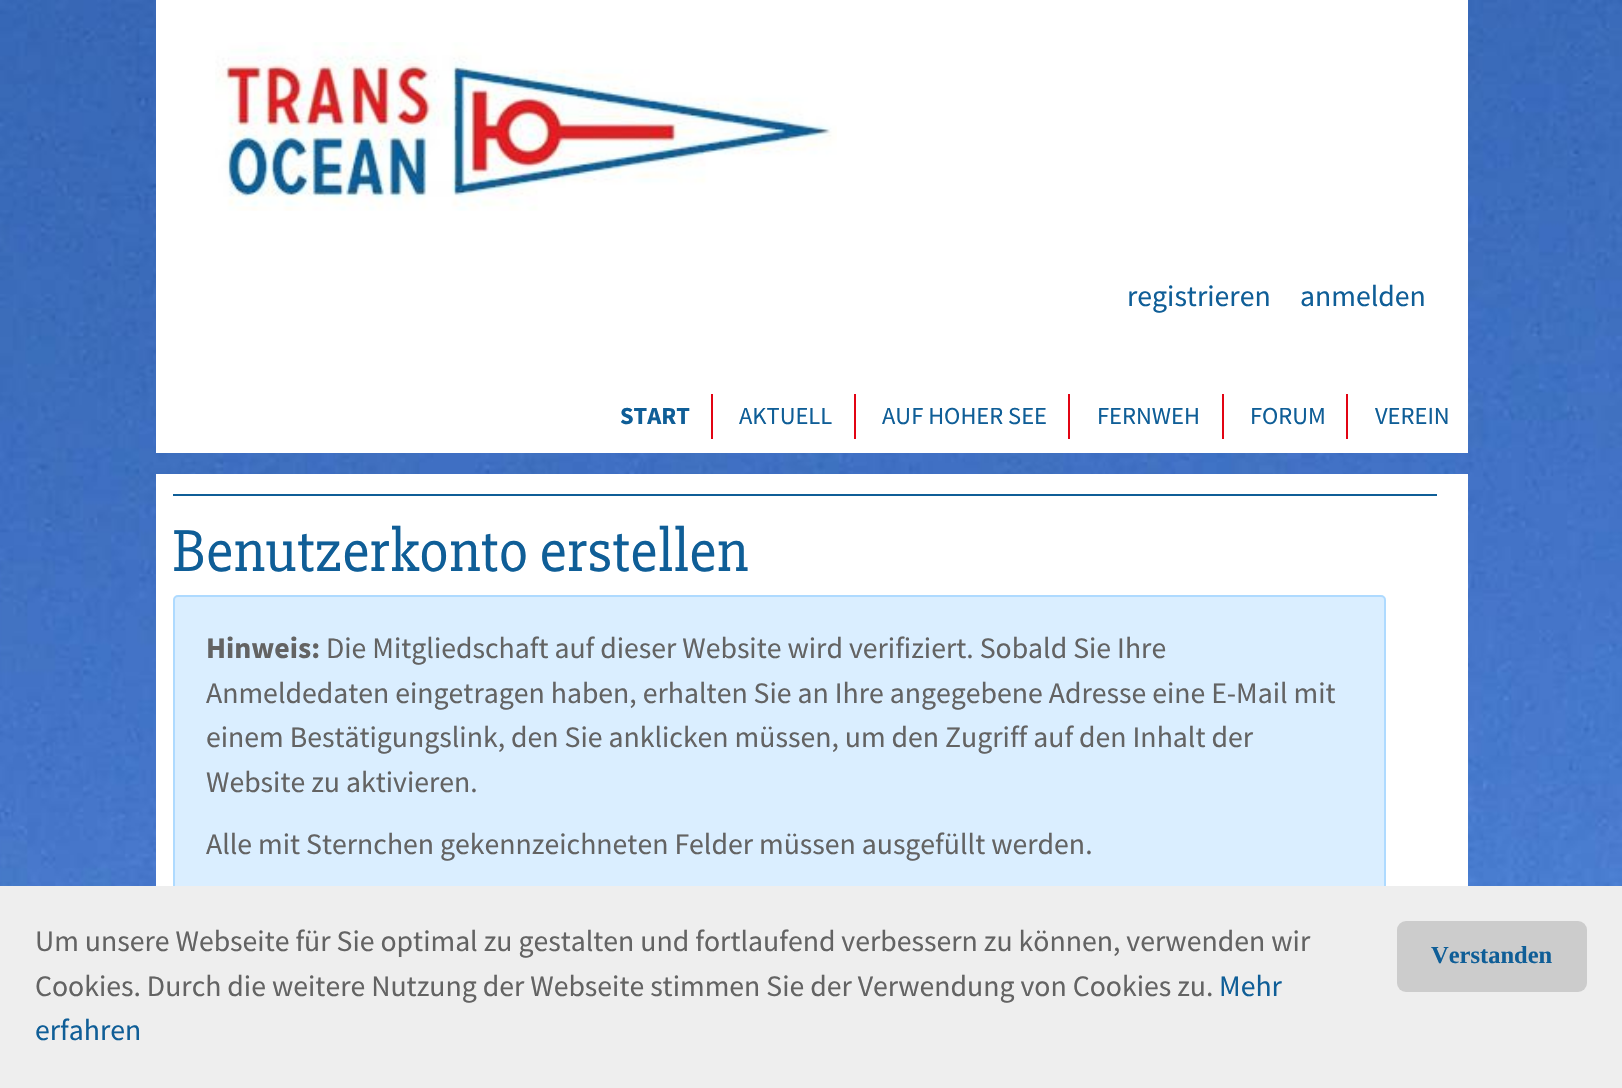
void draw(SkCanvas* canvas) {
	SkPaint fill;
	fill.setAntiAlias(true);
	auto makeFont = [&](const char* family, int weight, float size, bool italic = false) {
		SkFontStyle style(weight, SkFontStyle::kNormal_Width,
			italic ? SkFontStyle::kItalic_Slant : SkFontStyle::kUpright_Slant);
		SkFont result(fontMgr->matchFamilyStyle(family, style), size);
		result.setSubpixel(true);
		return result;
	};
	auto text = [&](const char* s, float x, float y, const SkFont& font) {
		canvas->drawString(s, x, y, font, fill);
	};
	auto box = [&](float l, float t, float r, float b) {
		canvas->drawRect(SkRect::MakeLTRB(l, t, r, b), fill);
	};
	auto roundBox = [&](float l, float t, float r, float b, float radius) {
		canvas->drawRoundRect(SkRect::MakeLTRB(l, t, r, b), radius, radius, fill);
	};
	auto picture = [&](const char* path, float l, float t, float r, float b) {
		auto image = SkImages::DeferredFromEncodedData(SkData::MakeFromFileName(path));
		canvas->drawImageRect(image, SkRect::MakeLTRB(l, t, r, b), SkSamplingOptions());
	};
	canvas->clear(0xFFFFFFFF);
	picture("image0.png", 0, 0, 1622, 886);
	fill.setColor(0xFFFFFFFF);
	box(156, 0, 1468, 453);
	picture("image1.png", 215, 42, 837, 211);
	fill.setColor(0xFFE20413);
	box(711, 394, 713, 439);
	box(854, 394, 856, 439);
	box(1068, 394, 1070, 439);
	box(1222, 394, 1224, 439);
	box(1346, 394, 1348, 439);
	fill.setColor(0xFFFFFFFF);
	box(156, 474, 1468, 886);
	fill.setColor(0xFF0F5E97);
	box(173, 494, 1437, 496);
	fill.setColor(0xFFDAEEFF);
	roundBox(173, 595, 1386, 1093, 5);
	fill.setStyle(SkPaint::kStroke_Style);
	fill.setStrokeWidth(2);
	fill.setColor(0x33028BFF);
	canvas->drawRoundRect(SkRect::MakeLTRB(174, 596, 1385, 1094), 4, 4, fill);
	fill.setStyle(SkPaint::kFill_Style);
	fill.setColor(0xFFEEEEEE);
	box(0, 886, 1622, 1088);
	fill.setColor(0xFFCCCCCC);
	roundBox(1397, 921, 1587, 992, 9);
	auto font1 = makeFont("Source Sans Pro", 400, 29.75f);
	fill.setColor(0xFF0F5E97);
	text("registrieren", 1127, 306, font1);
	text("anmelden", 1300, 306, font1);
	auto font2 = makeFont("Source Sans Pro", 700, 24.5f);
	text("START", 620, 424, font2);
	auto font3 = makeFont("Source Sans Pro", 400, 24.5f);
	text("AKTUELL", 739, 424, font3);
	text("AUF HOHER SEE", 882, 424, font3);
	text("FERNWEH", 1097, 424, font3);
	text("FORUM", 1250, 424, font3);
	text("VEREIN", 1375, 424, font3);
	auto font4 = makeFont("Slabo 27px", 400, 61.25f);
	text("Benutzerkonto erstellen", 172, 571, font4);
	auto font5 = makeFont("Source Sans Pro", 700, 29.75f);
	fill.setColor(0xFF636363);
	text("Hinweis:", 206, 658, font5);
	text("Die Mitgliedschaft auf dieser Website wird verifiziert. Sobald Sie Ihre", 326, 658, font1);
	text("Anmeldedaten eingetragen haben, erhalten Sie an Ihre angegebene Adresse eine E-Mail mit", 206, 703, font1);
	text("einem Bestätigungslink, den Sie anklicken müssen, um den Zugriff auf den Inhalt der", 206, 747, font1);
	text("Website zu aktivieren.", 206, 792, font1);
	text("Alle mit Sternchen gekennzeichneten Felder müssen ausgefüllt werden.", 206, 854, font1);
	text("Um unsere Webseite für Sie optimal zu gestalten und fortlaufend verbessern zu können, verwenden wir", 35, 951, font1);
	text("Cookies. Durch die weitere Nutzung der Webseite stimmen Sie der Verwendung von Cookies zu.", 35, 996, font1);
	fill.setColor(0xFF0F5E97);
	text("Mehr", 1219, 996, font1);
	text("erfahren", 35, 1040, font1);
	auto font6 = makeFont("Liberation Serif", 700, 24.5f);
	text("Verstanden", 1431, 963, font6);
}
